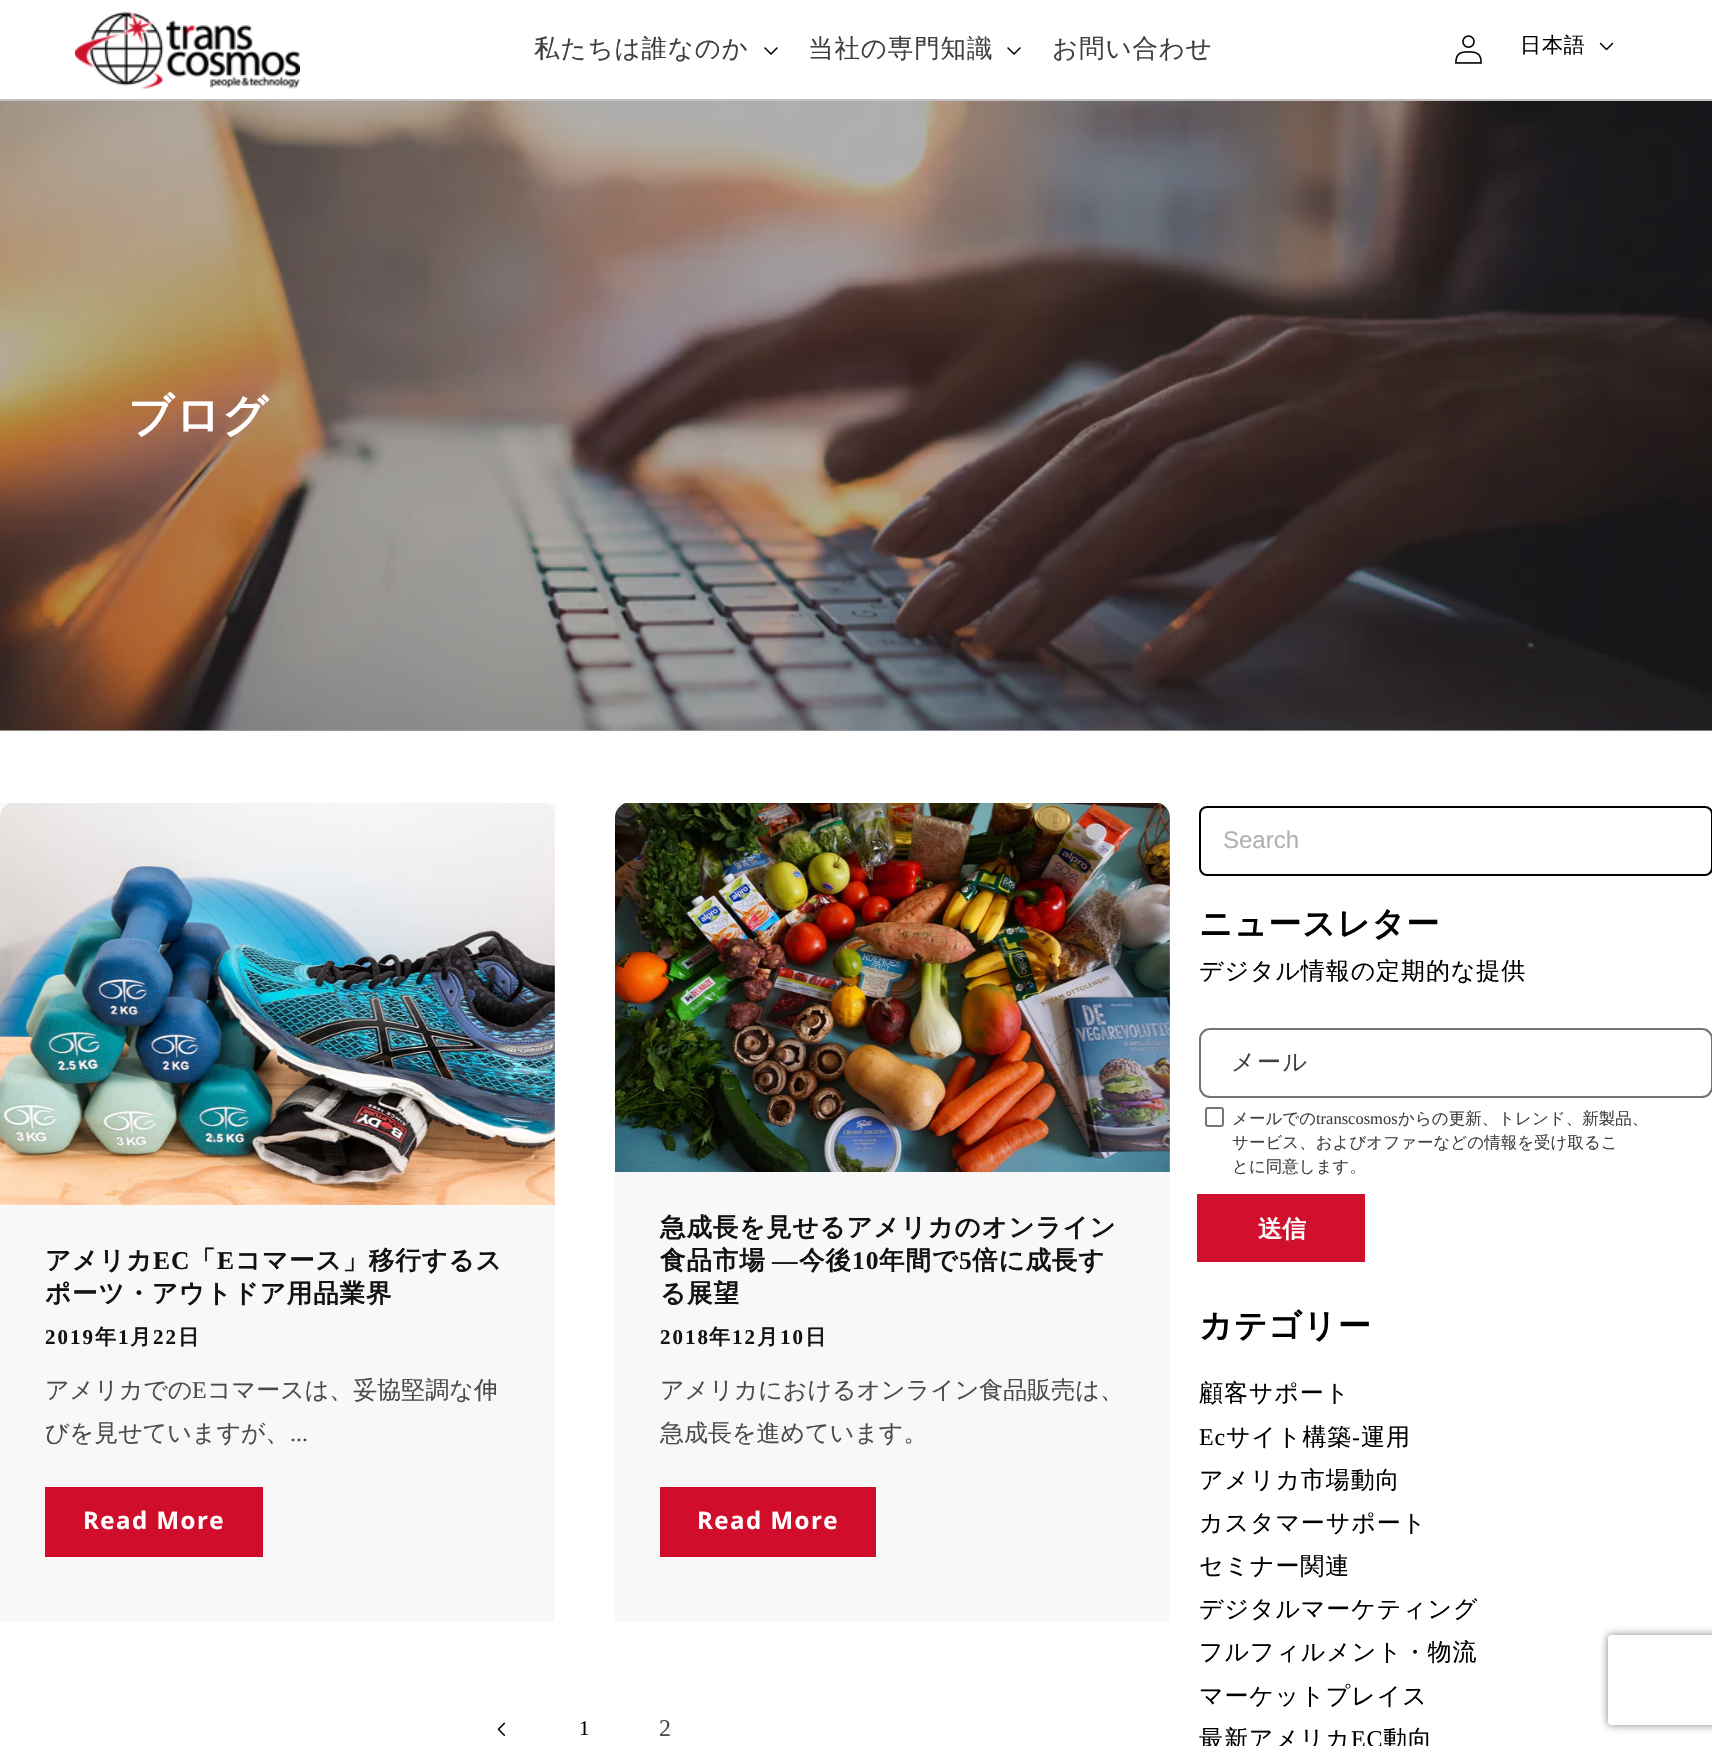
void draw(SkCanvas* canvas) {
	SkPaint fill;
	fill.setAntiAlias(true);
	auto makeFont = [&](const char* family, int weight, float size, bool italic = false) {
		SkFontStyle style(weight, SkFontStyle::kNormal_Width,
			italic ? SkFontStyle::kItalic_Slant : SkFontStyle::kUpright_Slant);
		SkFont result(fontMgr->matchFamilyStyle(family, style), size);
		result.setSubpixel(true);
		return result;
	};
	auto text = [&](const char* s, float x, float y, const SkFont& font) {
		canvas->drawString(s, x, y, font, fill);
	};
	auto spacedText = [&](const char* s, float x, float y, const SkFont& font, const SkPaint& ink, float letter, float word) {
		std::vector<SkGlyphID> glyphs(font.countText(s, strlen(s), SkTextEncoding::kUTF8));
		std::vector<float> xs(glyphs.size());
		font.textToGlyphs(s, strlen(s), SkTextEncoding::kUTF8, glyphs);
		font.getXPos(glyphs, xs, x);
		float extra = 0;
		for (size_t i = 0; i < glyphs.size(); i++) {
			xs[i] += extra;
			extra += letter + word * (glyphs[i] == font.unicharToGlyph(' '));
		}
		canvas->drawTextBlob(SkTextBlob::MakeFromPosHGlyphs(glyphs, xs, y, font), 0, 0, ink);
	};
	auto box = [&](float l, float t, float r, float b) {
		canvas->drawRect(SkRect::MakeLTRB(l, t, r, b), fill);
	};
	auto picture = [&](const char* path, float l, float t, float r, float b) {
		auto image = SkImages::DeferredFromEncodedData(SkData::MakeFromFileName(path));
		canvas->drawImageRect(image, SkRect::MakeLTRB(l, t, r, b), SkSamplingOptions());
	};
	canvas->clear(0xFFFFFFFF);
	fill.setColor(0xFFC1C1C1);
	box(0, 99, 1712, 101);
	picture("image0.png", 75, 11, 300, 89);
	picture("image1.png", 764, 47, 778, 55);
	picture("image1.png", 1007, 47, 1021, 55);
	picture("image2.png", 1455, 35, 1482, 64);
	picture("image3.png", 1599, 42, 1614, 51);
	fill.setColor(0xFFA1A1A1);
	box(0, 730, 1712, 731);
	picture("image4.png", 0, 101, 1712, 731);
	fill.setColor(0xFFF8F8F8);
	box(0, 803, 555, 1622);
	picture("image5.png", 0, 803, 555, 1205);
	fill.setColor(0xFFD00E2C);
	box(45, 1487, 263, 1557);
	fill.setColor(0xFFF8F8F8);
	box(615, 803, 1169, 1622);
	picture("image6.png", 615, 803, 1170, 1172);
	fill.setColor(0xFFD00E2C);
	box(660, 1487, 876, 1557);
	picture("image7.png", 497, 1722, 506, 1736);
	fill.setStyle(SkPaint::kStroke_Style);
	fill.setStrokeWidth(2);
	fill.setColor(0xFF000000);
	canvas->drawRoundRect(SkRect::MakeLTRB(1200, 807, 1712, 875), 7, 7, fill);
	fill.setColor(0xFF737373);
	canvas->drawRoundRect(SkRect::MakeLTRB(1200, 1029, 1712, 1097), 10, 10, fill);
	fill.setColor(0xFF767676);
	canvas->drawRoundRect(SkRect::MakeLTRB(1206, 1108, 1223, 1126), 2, 2, fill);
	fill.setStyle(SkPaint::kFill_Style);
	fill.setColor(0xFFD0102D);
	box(1197, 1194, 1365, 1262);
	canvas->save();
	canvas->clipPath(SkPathBuilder(SkPathFillType::kEvenOdd).moveTo(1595, 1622).lineTo(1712, 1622).lineTo(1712, 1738).lineTo(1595, 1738).close().moveTo(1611, 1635).lineTo(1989, 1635).cubicTo(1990.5f, 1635, 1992, 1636.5f, 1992, 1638).lineTo(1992, 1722).cubicTo(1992, 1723.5f, 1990.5f, 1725, 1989, 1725).lineTo(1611, 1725).cubicTo(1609.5f, 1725, 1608, 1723.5f, 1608, 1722).lineTo(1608, 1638).cubicTo(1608, 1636.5f, 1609.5f, 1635, 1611, 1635).close().detach(), true);
	fill.setColor(0xFF808080);
	fill.setMaskFilter(SkMaskFilter::MakeBlur(kNormal_SkBlurStyle, 4));
	canvas->drawRoundRect(SkRect::MakeLTRB(1608, 1635, 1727, 1725), 3, 3, fill);
	fill.setMaskFilter(nullptr);
	canvas->restore();
	auto font1 = makeFont("WenQuanYi Zen Hei", 500, 25.5f);
	fill.setColor(0xFF404040);
	spacedText("私たちは誰なのか", 534, 57, font1, fill, 0.9f, 0);
	spacedText("当社の専門知識", 808, 57, font1, fill, 0.9f, 0);
	spacedText("お問い合わせ", 1052, 57, font1, fill, 0.9f, 0);
	auto font2 = makeFont("WenQuanYi Zen Hei", 500, 21);
	fill.setColor(0xFF000000);
	spacedText("日本語", 1520, 52, font2, fill, 0.9f, 0);
	auto font3 = makeFont("WenQuanYi Zen Hei", 700, 45);
	fill.setColor(0xFFFFFFFF);
	spacedText("ブログ", 128, 431, font3, fill, 0.9f, 0);
	auto font4 = makeFont("WenQuanYi Zen Hei", 700, 25.5f);
	fill.setColor(0xFF121212);
	spacedText("アメリカ", 45, 1269, font4, fill, 0.9f, 0);
	auto font5 = makeFont("Liberation Serif", 700, 25.5f);
	spacedText("EC", 153, 1269, font5, fill, 0.9f, 0);
	spacedText("「", 190, 1269, font4, fill, 0.9f, 0);
	spacedText("E", 217, 1269, font5, fill, 0.9f, 0);
	spacedText("コマース」移行するス", 235, 1269, font4, fill, 0.9f, 0);
	spacedText("ポーツ・アウトドア用品業界", 45, 1302, font4, fill, 0.9f, 0);
	auto font6 = makeFont("Liberation Serif", 700, 21);
	spacedText("2019", 45, 1344, font6, fill, 2, 0);
	auto font7 = makeFont("WenQuanYi Zen Hei", 700, 21);
	spacedText("年", 95, 1344, font7, fill, 2, 0);
	spacedText("1", 118, 1344, font6, fill, 2, 0);
	spacedText("月", 130, 1344, font7, fill, 2, 0);
	spacedText("22", 153, 1344, font6, fill, 2, 0);
	spacedText("日", 178, 1344, font7, fill, 2, 0);
	auto font8 = makeFont("WenQuanYi Zen Hei", 500, 24);
	fill.setColor(0xFF4C4C4C);
	text("アメリカでの", 45, 1398, font8);
	auto font9 = makeFont("Liberation Serif", 400, 24);
	text("E", 192, 1398, font9);
	text("コマースは、妥協堅調な伸", 207, 1398, font8);
	text("びを見せていますが、", 45, 1441, font8);
	text("...", 290, 1441, font9);
	auto font10 = makeFont("Open Sans", 700, 24);
	fill.setColor(0xFFFFFFFF);
	spacedText("Read More", 83, 1529, font10, fill, 1.5f, 0);
	fill.setColor(0xFF121212);
	spacedText("急成長を見せるアメリカのオンライン", 660, 1236, font4, fill, 0.9f, 0);
	spacedText("食品市場", 660, 1269, font4, fill, 0.9f, 0);
	spacedText("―", 772, 1269, font5, fill, 0.9f, 0);
	spacedText("今後", 799, 1269, font4, fill, 0.9f, 0);
	spacedText("10", 852, 1269, font5, fill, 0.9f, 0);
	spacedText("年間で", 879, 1269, font4, fill, 0.9f, 0);
	spacedText("5", 959, 1269, font5, fill, 0.9f, 0);
	spacedText("倍に成長す", 972, 1269, font4, fill, 0.9f, 0);
	spacedText("る展望", 660, 1302, font4, fill, 0.9f, 0);
	spacedText("2018", 660, 1344, font6, fill, 2, 0);
	spacedText("年", 709, 1344, font7, fill, 2, 0);
	spacedText("12", 732, 1344, font6, fill, 2, 0);
	spacedText("月", 757, 1344, font7, fill, 2, 0);
	spacedText("10", 780, 1344, font6, fill, 2, 0);
	spacedText("日", 805, 1344, font7, fill, 2, 0);
	fill.setColor(0xFF4C4C4C);
	text("アメリカにおけるオンライン食品販売は、", 660, 1398, font8);
	text("急成長を進めています。", 660, 1441, font8);
	fill.setColor(0xFFFFFFFF);
	spacedText("Read More", 697, 1529, font10, fill, 1.5f, 0);
	auto font11 = makeFont("Liberation Serif", 400, 21);
	fill.setColor(0xFF000000);
	spacedText("1", 579, 1735, font11, fill, 0.9f, 0);
	fill.setColor(0xFF4C4C4C);
	spacedText("2", 659, 1736, font9, fill, 0.9f, 0);
	auto font12 = makeFont("Liberation Sans", 400, 24);
	fill.setColor(0xFFB1B1B1);
	text("Search", 1223, 848, font12);
	auto font13 = makeFont("WenQuanYi Zen Hei", 700, 33);
	fill.setColor(0xFF000000);
	spacedText("ニュースレター", 1199, 935, font13, fill, 0.9f, 0);
	spacedText("デジタル情報の定期的な提供", 1199, 979, font8, fill, 0.9f, 0);
	fill.setColor(0xFF404040);
	spacedText("メール", 1231, 1070, font8, fill, 1.5f, 0);
	auto font14 = makeFont("WenQuanYi Zen Hei", 500, 16.5f);
	text("メールでの", 1232, 1124, font14);
	auto font15 = makeFont("Liberation Serif", 400, 16.5f);
	text("transcosmos", 1316, 1124, font15);
	text("からの更新、トレンド、新製品、", 1398, 1124, font14);
	text("サービス、およびオファーなどの情報を受け取るこ", 1232, 1148, font14);
	text("とに同意します。", 1232, 1172, font14);
	auto font16 = makeFont("WenQuanYi Zen Hei", 700, 24);
	fill.setColor(0xFFFFFFFF);
	text("送信", 1258, 1237, font16);
	fill.setColor(0xFF000000);
	spacedText("カテゴリー", 1199, 1337, font13, fill, 0.9f, 0);
	spacedText("顧客サポート", 1199, 1401, font8, fill, 0.9f, 0);
	spacedText("Ec", 1199, 1445, font9, fill, 0.9f, 0);
	spacedText("サイト構築", 1226, 1445, font8, fill, 0.9f, 0);
	spacedText("-", 1352, 1445, font9, fill, 0.9f, 0);
	spacedText("運用", 1361, 1445, font8, fill, 0.9f, 0);
	spacedText("アメリカ市場動向", 1199, 1488, font8, fill, 0.9f, 0);
	spacedText("カスタマーサポート", 1199, 1531, font8, fill, 0.9f, 0);
	spacedText("セミナー関連", 1199, 1574, font8, fill, 0.9f, 0);
	spacedText("デジタルマーケティング", 1199, 1617, font8, fill, 0.9f, 0);
	spacedText("フルフィルメント・物流", 1199, 1660, font8, fill, 0.9f, 0);
	spacedText("マーケットプレイス", 1199, 1704, font8, fill, 0.9f, 0);
	spacedText("最新アメリカ", 1199, 1747, font8, fill, 0.9f, 0);
	spacedText("EC", 1351, 1747, font9, fill, 0.9f, 0);
	spacedText("動向", 1383, 1747, font8, fill, 0.9f, 0);
}
